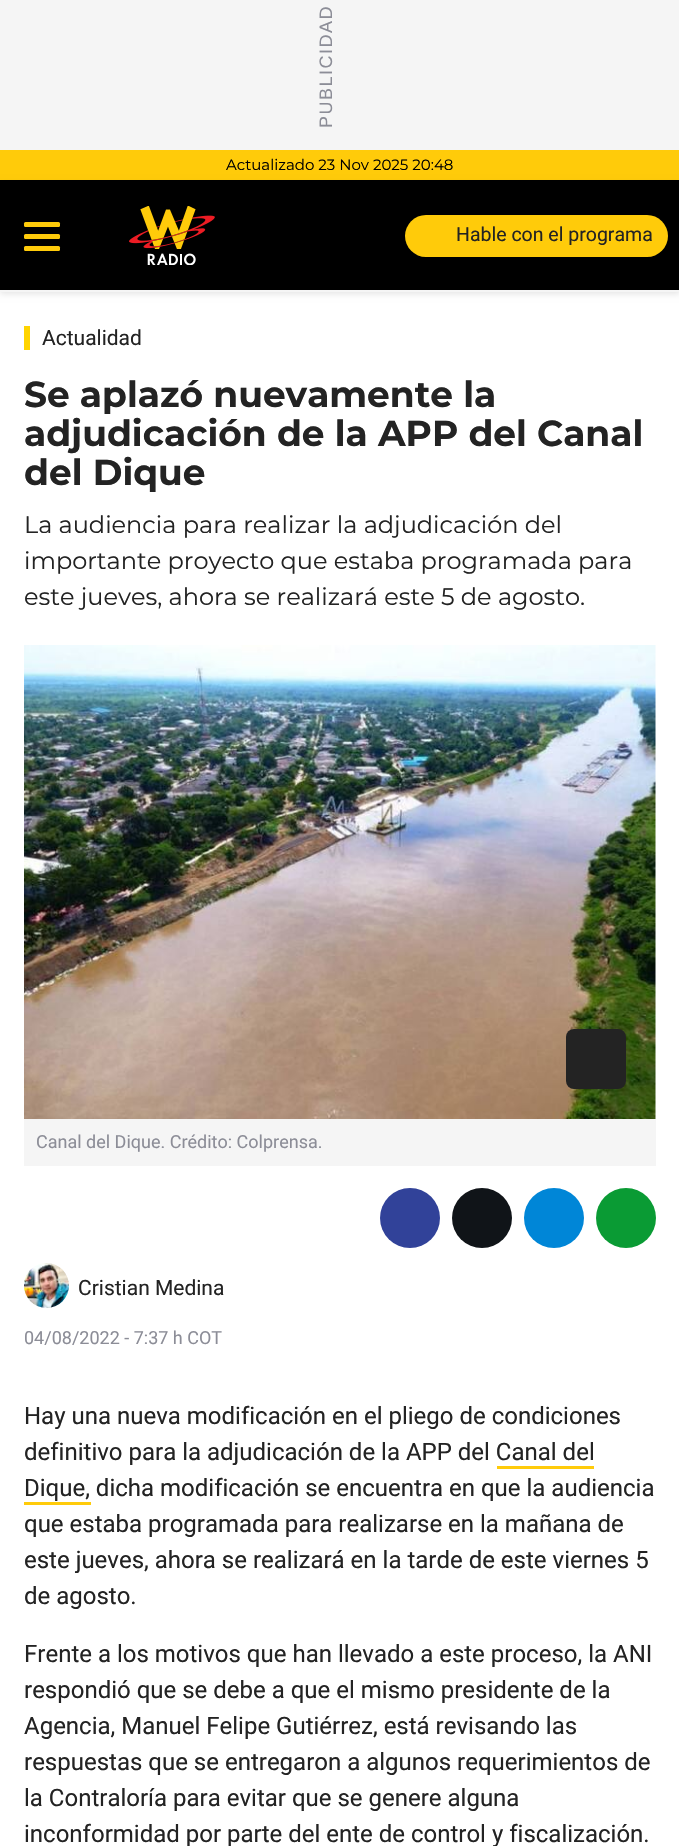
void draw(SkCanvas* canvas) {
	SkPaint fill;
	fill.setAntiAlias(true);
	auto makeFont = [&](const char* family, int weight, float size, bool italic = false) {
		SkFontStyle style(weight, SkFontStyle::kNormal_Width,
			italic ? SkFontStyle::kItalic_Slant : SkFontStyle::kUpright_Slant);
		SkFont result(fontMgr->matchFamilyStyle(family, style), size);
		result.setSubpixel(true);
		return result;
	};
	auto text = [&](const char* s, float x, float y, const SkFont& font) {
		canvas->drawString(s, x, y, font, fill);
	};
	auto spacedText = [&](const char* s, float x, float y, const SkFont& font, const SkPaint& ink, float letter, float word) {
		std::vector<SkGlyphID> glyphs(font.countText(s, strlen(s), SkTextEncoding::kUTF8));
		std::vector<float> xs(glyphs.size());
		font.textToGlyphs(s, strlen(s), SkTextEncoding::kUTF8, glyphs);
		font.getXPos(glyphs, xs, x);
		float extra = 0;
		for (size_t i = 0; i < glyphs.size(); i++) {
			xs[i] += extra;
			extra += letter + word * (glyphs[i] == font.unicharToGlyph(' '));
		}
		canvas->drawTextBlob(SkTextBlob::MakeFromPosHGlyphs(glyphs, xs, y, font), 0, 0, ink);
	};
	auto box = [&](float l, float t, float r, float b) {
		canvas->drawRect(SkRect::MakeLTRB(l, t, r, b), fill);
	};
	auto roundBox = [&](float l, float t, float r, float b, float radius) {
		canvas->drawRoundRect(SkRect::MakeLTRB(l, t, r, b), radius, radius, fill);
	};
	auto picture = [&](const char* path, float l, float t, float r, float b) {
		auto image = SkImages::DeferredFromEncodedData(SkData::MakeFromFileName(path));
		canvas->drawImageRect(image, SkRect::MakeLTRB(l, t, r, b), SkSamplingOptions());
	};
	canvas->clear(0xFFFFFFFF);
	fill.setColor(0xFFF5F5F5);
	box(0, 0, 679, 150);
	fill.setColor(0xFFFFCB0A);
	box(0, 150, 679, 180);
	fill.setColor(0x1A000000);
	fill.setMaskFilter(SkMaskFilter::MakeBlur(kNormal_SkBlurStyle, 3));
	canvas->drawRect(SkRect::MakeLTRB(0, 183, 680, 294), fill);
	fill.setMaskFilter(nullptr);
	fill.setColor(0xFF000000);
	box(0, 180, 679, 290);
	fill.setColor(0xFFF5F5F5);
	box(0, 290, 679, 292);
	fill.setColor(0xFFFFCB0A);
	roundBox(24, 234, 60, 239, 1.5f);
	roundBox(24, 222, 60, 227, 1.5f);
	roundBox(24, 246, 60, 251, 1.5f);
	picture("image0.png", 129, 206, 215, 265);
	roundBox(405, 215, 668, 257, 21);
	fill.setColor(0xFFFFD400);
	box(24, 326, 30, 350);
	picture("image1.png", 24, 645, 656, 1119);
	fill.setColor(0xFF232323);
	roundBox(566, 1029, 626, 1089, 8);
	fill.setColor(0xFFF5F5F5);
	box(24, 1119, 656, 1166);
	fill.setColor(0xFF314299);
	canvas->drawCircle(410, 1218, 30, fill);
	fill.setColor(0xFF101418);
	canvas->drawCircle(482, 1218, 30, fill);
	fill.setColor(0xFF0086D7);
	canvas->drawCircle(554, 1218, 30, fill);
	fill.setColor(0xFF0A9B34);
	canvas->drawCircle(626, 1218, 30, fill);
	picture("image2.png", 24, 1263, 69, 1308);
	fill.setColor(0xFFFFCB0A);
	box(497, 1466, 594, 1469);
	box(24, 1502, 91, 1505);
	auto font1 = makeFont("Liberation Sans", 400, 18);
	fill.setColor(0xFF8C8D97);
	canvas->save();
	canvas->rotate(-90, 332, 128);
	spacedText("PUBLICIDAD", 332, 128, font1, fill, 1.5f, 0);
	canvas->restore();
	auto font2 = makeFont("Montserrat", 400, 15);
	fill.setColor(0xFF000000);
	text("Actualizado 23 Nov 2025 20:48", 226, 170, font2);
	auto font3 = makeFont("Roboto", 400, 19.5f);
	fill.setColor(0xFF232323);
	text("Hable con el programa", 456, 241, font3);
	auto font4 = makeFont("Roboto", 400, 21);
	text("Actualidad", 42, 345, font4);
	auto font5 = makeFont("Montserrat", 700, 36);
	text("Se aplazó nuevamente la", 24, 407, font5);
	text("adjudicación de la APP del Canal", 24, 446, font5);
	text("del Dique", 24, 485, font5);
	auto font6 = makeFont("Montserrat", 400, 24);
	text("La audiencia para realizar la adjudicación del", 24, 533, font6);
	text("importante proyecto que estaba programada para", 24, 569, font6);
	text("este jueves, ahora se realizará este 5 de agosto.", 24, 605, font6);
	auto font7 = makeFont("Roboto", 400, 18);
	fill.setColor(0xFF8C8D97);
	text("Canal del Dique. Crédito: Colprensa.", 36, 1148, font7);
	fill.setColor(0xFF232323);
	text("Cristian Medina", 78, 1295, font4);
	fill.setColor(0xFF8C8D97);
	text("04/08/2022 - 7:37 h COT", 24, 1344, font7);
	auto font8 = makeFont("Roboto", 400, 24);
	fill.setColor(0xFF232323);
	text("Hay una nueva modificación en el pliego de condiciones", 24, 1424, font8);
	text("definitivo para la adjudicación de la APP del Canal del", 24, 1460, font8);
	text("Dique, dicha modificación se encuentra en que la audiencia", 24, 1496, font8);
	text("que estaba programada para realizarse en la mañana de", 24, 1532, font8);
	text("este jueves, ahora se realizará en la tarde de este viernes 5", 24, 1568, font8);
	text("de agosto.", 24, 1604, font8);
	text("Frente a los motivos que han llevado a este proceso, la ANI", 24, 1662, font8);
	text("respondió que se debe a que el mismo presidente de la", 24, 1698, font8);
	text("Agencia, Manuel Felipe Gutiérrez, está revisando las", 24, 1734, font8);
	text("respuestas que se entregaron a algunos requerimientos de", 24, 1770, font8);
	text("la Contraloría para evitar que se genere alguna", 24, 1806, font8);
	text("inconformidad por parte del ente de control y fiscalización.", 24, 1842, font8);
}
